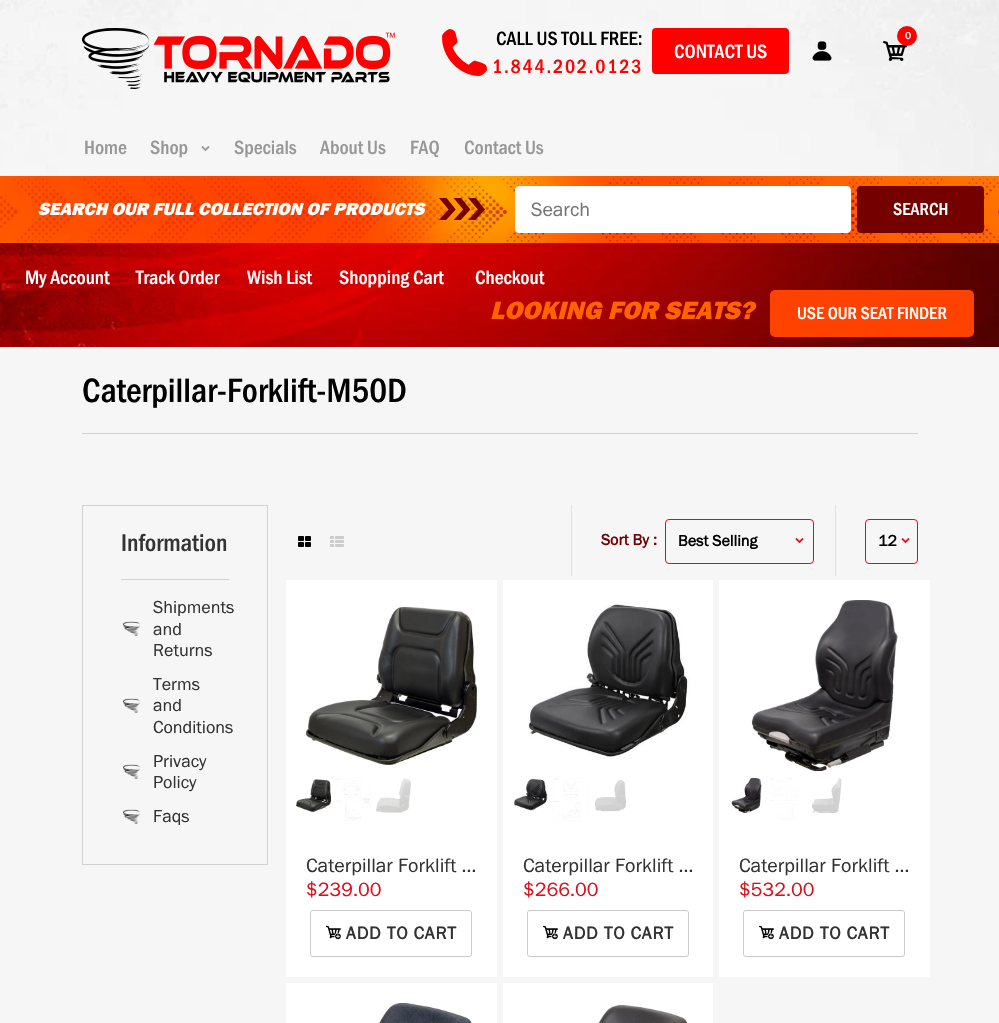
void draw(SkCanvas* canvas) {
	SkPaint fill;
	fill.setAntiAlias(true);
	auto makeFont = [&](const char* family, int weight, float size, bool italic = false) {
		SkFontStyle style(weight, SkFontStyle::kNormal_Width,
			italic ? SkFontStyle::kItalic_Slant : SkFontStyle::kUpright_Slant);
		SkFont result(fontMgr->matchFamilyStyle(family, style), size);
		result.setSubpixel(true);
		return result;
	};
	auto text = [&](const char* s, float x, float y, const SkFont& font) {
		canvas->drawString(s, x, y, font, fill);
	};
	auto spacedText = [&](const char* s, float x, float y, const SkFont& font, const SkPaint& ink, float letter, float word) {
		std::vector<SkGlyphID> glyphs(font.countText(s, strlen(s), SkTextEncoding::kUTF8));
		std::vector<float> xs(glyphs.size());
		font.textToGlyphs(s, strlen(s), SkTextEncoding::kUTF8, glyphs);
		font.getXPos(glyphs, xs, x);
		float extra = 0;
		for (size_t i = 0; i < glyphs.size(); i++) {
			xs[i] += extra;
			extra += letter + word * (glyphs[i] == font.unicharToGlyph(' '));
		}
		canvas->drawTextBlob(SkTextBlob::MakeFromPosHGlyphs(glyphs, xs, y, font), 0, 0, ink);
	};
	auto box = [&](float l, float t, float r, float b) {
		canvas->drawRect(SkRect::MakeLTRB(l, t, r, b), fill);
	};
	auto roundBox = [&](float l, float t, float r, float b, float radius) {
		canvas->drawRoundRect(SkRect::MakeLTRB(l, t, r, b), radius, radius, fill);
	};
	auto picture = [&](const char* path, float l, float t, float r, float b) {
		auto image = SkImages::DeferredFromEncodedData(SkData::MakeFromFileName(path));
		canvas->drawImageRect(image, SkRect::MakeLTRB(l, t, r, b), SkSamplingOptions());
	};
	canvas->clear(0xFFF6F6F6);
	picture("image0.png", 0, 0, 999, 176);
	picture("image1.png", 82, 28, 395, 89);
	picture("image2.png", 442, 29, 487, 76);
	fill.setColor(0xFFFF0000);
	canvas->drawRoundRect(SkRect::MakeLTRB(653, 29, 788, 73), 3, 3, fill);
	fill.setStyle(SkPaint::kStroke_Style);
	fill.setStrokeWidth(2);
	canvas->drawRoundRect(SkRect::MakeLTRB(653, 29, 788, 73), 3, 3, fill);
	picture("image3.png", 883, 41, 907, 61);
	fill.setStyle(SkPaint::kFill_Style);
	canvas->drawCircle(907, 36, 10, fill);
	picture("image4.png", 812, 41, 832, 61);
	picture("image5.png", 201, 146, 210, 152);
	picture("image6.png", 0, 176, 999, 243);
	picture("image7.png", 439, 198, 485, 220);
	fill.setColor(0xFFFFFFFF);
	canvas->drawRoundRect(SkRect::MakeLTRB(515.5f, 186.5f, 850.5f, 232.5f), 3.5f, 3.5f, fill);
	fill.setStyle(SkPaint::kStroke_Style);
	fill.setStrokeWidth(1);
	canvas->drawRoundRect(SkRect::MakeLTRB(515.5f, 186.5f, 850.5f, 232.5f), 3.5f, 3.5f, fill);
	fill.setStyle(SkPaint::kFill_Style);
	fill.setColor(0xFF740000);
	roundBox(857, 186, 984, 233, 4);
	picture("image8.png", 0, 243, 999, 347);
	fill.setColor(0xFFFF4200);
	canvas->drawRoundRect(SkRect::MakeLTRB(771, 291, 973, 336), 4, 4, fill);
	fill.setStyle(SkPaint::kStroke_Style);
	fill.setStrokeWidth(2);
	canvas->drawRoundRect(SkRect::MakeLTRB(771, 291, 973, 336), 4, 4, fill);
	fill.setStyle(SkPaint::kFill_Style);
	fill.setColor(0xFFFFFFFF);
	box(0, 347, 999, 348);
	fill.setColor(0xFFD1D1D1);
	box(82, 433, 918, 434);
	fill.setStyle(SkPaint::kStroke_Style);
	fill.setStrokeWidth(1);
	canvas->drawRect(SkRect::MakeLTRB(82.5f, 505.5f, 267.5f, 864.5f), fill);
	fill.setStyle(SkPaint::kFill_Style);
	box(121, 579, 229, 580);
	picture("image9.png", 123, 621, 140, 636);
	picture("image9.png", 123, 698, 140, 713);
	picture("image9.png", 123, 764, 140, 779);
	picture("image9.png", 123, 809, 140, 824);
	picture("image10.png", 298, 536, 311, 547);
	picture("image11.png", 330, 536, 344, 547);
	fill.setColor(0xFFE0E0E0);
	box(571, 505, 572, 576);
	picture("image12.png", 795, 538, 804, 544);
	fill.setStyle(SkPaint::kStroke_Style);
	fill.setColor(0xFFFF0000);
	canvas->drawRoundRect(SkRect::MakeLTRB(665.5f, 519.5f, 813.5f, 563.5f), 3.5f, 3.5f, fill);
	fill.setStyle(SkPaint::kFill_Style);
	fill.setColor(0xFFE0E0E0);
	box(835, 505, 836, 576);
	picture("image12.png", 901, 538, 910, 544);
	fill.setStyle(SkPaint::kStroke_Style);
	fill.setColor(0xFFFF0000);
	canvas->drawRoundRect(SkRect::MakeLTRB(865.5f, 519.5f, 917.5f, 563.5f), 3.5f, 3.5f, fill);
	fill.setStyle(SkPaint::kFill_Style);
	fill.setColor(0xFFFFFFFF);
	box(286, 580, 497, 977);
	picture("image13.png", 306, 606, 477, 766);
	picture("image14.png", 296, 779, 331, 813);
	picture("image15.png", 336, 778, 371, 821);
	picture("image16.png", 376, 778, 411, 813);
	fill.setStyle(SkPaint::kStroke_Style);
	fill.setColor(0xFFCCCCCC);
	canvas->drawRoundRect(SkRect::MakeLTRB(310.5f, 910.5f, 471.5f, 956.5f), 2.5f, 2.5f, fill);
	picture("image17.png", 326, 925, 341, 940);
	fill.setStyle(SkPaint::kFill_Style);
	fill.setColor(0xFFFFFFFF);
	box(503, 580, 713, 977);
	picture("image18.png", 528, 604, 690, 759);
	picture("image19.png", 513, 778, 548, 811);
	picture("image20.png", 553, 778, 588, 822);
	picture("image21.png", 595, 780, 627, 812);
	fill.setStyle(SkPaint::kStroke_Style);
	fill.setColor(0xFFCCCCCC);
	canvas->drawRoundRect(SkRect::MakeLTRB(527.5f, 910.5f, 688.5f, 956.5f), 2.5f, 2.5f, fill);
	picture("image17.png", 543, 925, 558, 940);
	fill.setStyle(SkPaint::kFill_Style);
	fill.setColor(0xFFFFFFFF);
	box(719, 580, 930, 977);
	picture("image22.png", 751, 600, 898, 771);
	picture("image23.png", 731, 778, 762, 813);
	picture("image24.png", 769, 778, 800, 820);
	picture("image25.png", 811, 778, 842, 813);
	fill.setStyle(SkPaint::kStroke_Style);
	fill.setColor(0xFFCCCCCC);
	canvas->drawRoundRect(SkRect::MakeLTRB(743.5f, 910.5f, 904.5f, 956.5f), 2.5f, 2.5f, fill);
	picture("image17.png", 759, 925, 774, 940);
	fill.setStyle(SkPaint::kFill_Style);
	fill.setColor(0xFFFFFFFF);
	box(286, 983, 497, 1023);
	picture("image26.png", 377, 1003, 473, 1023);
	box(503, 983, 713, 1023);
	picture("image27.png", 598, 1004, 689, 1023);
	auto font1 = makeFont("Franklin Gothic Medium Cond", 500, 20);
	fill.setColor(0xFF000000);
	text("CALL US TOLL FREE:", 496, 45, font1);
	fill.setColor(0xFFFF0000);
	spacedText("1.844.202.0123", 492, 73, font1, fill, 1.75f, 0);
	fill.setColor(0xFFFFFFFF);
	text("CONTACT US", 674, 58, font1);
	auto font2 = makeFont("Franklin Gothic", 700, 10);
	text("0", 905, 39, font2);
	fill.setColor(0xFF979797);
	text("Home", 84, 154, font1);
	text("Shop", 150, 154, font1);
	text("Specials", 234, 154, font1);
	text("About Us", 320, 154, font1);
	text("FAQ", 410, 154, font1);
	text("Contact Us", 464, 154, font1);
	auto font3 = makeFont("Franklin Gothic", 900, 18, true);
	fill.setColor(0xFFFFFFFF);
	text("SEARCH OUR FULL COLLECTION OF PRODUCTS", 38, 215, font3);
	auto font4 = makeFont("Franklin Gothic", 400, 20);
	fill.setColor(0xFF757575);
	text("Search", 531, 216, font4);
	auto font5 = makeFont("Franklin Gothic Medium Cond", 500, 18);
	fill.setColor(0xFFFFFFFF);
	text("SEARCH", 893, 215, font5);
	text("My Account", 25, 284, font1);
	text("Track Order", 136, 284, font1);
	text("Wish List", 247, 284, font1);
	text("Shopping Cart", 339, 284, font1);
	text("Checkout", 475, 284, font1);
	auto font6 = makeFont("Franklin Gothic", 900, 26, true);
	fill.setColor(0xFFFF6300);
	text("LOOKING FOR SEATS?", 490, 319, font6);
	fill.setColor(0xFFFFFFFF);
	text("USE OUR SEAT FINDER", 797, 319, font5);
	auto font7 = makeFont("Franklin Gothic Medium Cond", 500, 35);
	fill.setColor(0xFF000000);
	text("Caterpillar-Forklift-M50D", 82, 402, font7);
	auto font8 = makeFont("Franklin Gothic Medium Cond", 500, 25);
	fill.setColor(0xFF333333);
	text("Information", 121, 551, font8);
	auto font9 = makeFont("Franklin Gothic", 400, 18);
	text("Shipments", 153, 613, font9);
	text("and", 153, 635, font9);
	text("Returns", 153, 656, font9);
	text("Terms", 153, 690, font9);
	text("and", 153, 711, font9);
	text("Conditions", 153, 733, font9);
	text("Privacy", 153, 767, font9);
	text("Policy", 153, 788, font9);
	text("Faqs", 153, 822, font9);
	auto font10 = makeFont("Franklin Gothic", 700, 16);
	fill.setColor(0xFF740000);
	text("Sort By :", 601, 545, font10);
	fill.setColor(0xFF000000);
	text("Best Selling", 678, 546, font10);
	text("12", 878, 546, font10);
	fill.setColor(0xFF333333);
	text("Caterpillar Forklift …", 306, 872, font4);
	fill.setColor(0xFFD9121F);
	text("$239.00", 306, 896, font4);
	auto font11 = makeFont("Franklin Gothic", 700, 18);
	fill.setColor(0xFF333333);
	spacedText("ADD TO CART", 346, 939, font11, fill, 0.75f, 0);
	text("Caterpillar Forklift …", 523, 872, font4);
	fill.setColor(0xFFD9121F);
	text("$266.00", 523, 896, font4);
	fill.setColor(0xFF333333);
	spacedText("ADD TO CART", 563, 939, font11, fill, 0.75f, 0);
	text("Caterpillar Forklift …", 739, 872, font4);
	fill.setColor(0xFFD9121F);
	text("$532.00", 739, 896, font4);
	fill.setColor(0xFF333333);
	spacedText("ADD TO CART", 779, 939, font11, fill, 0.75f, 0);
}
